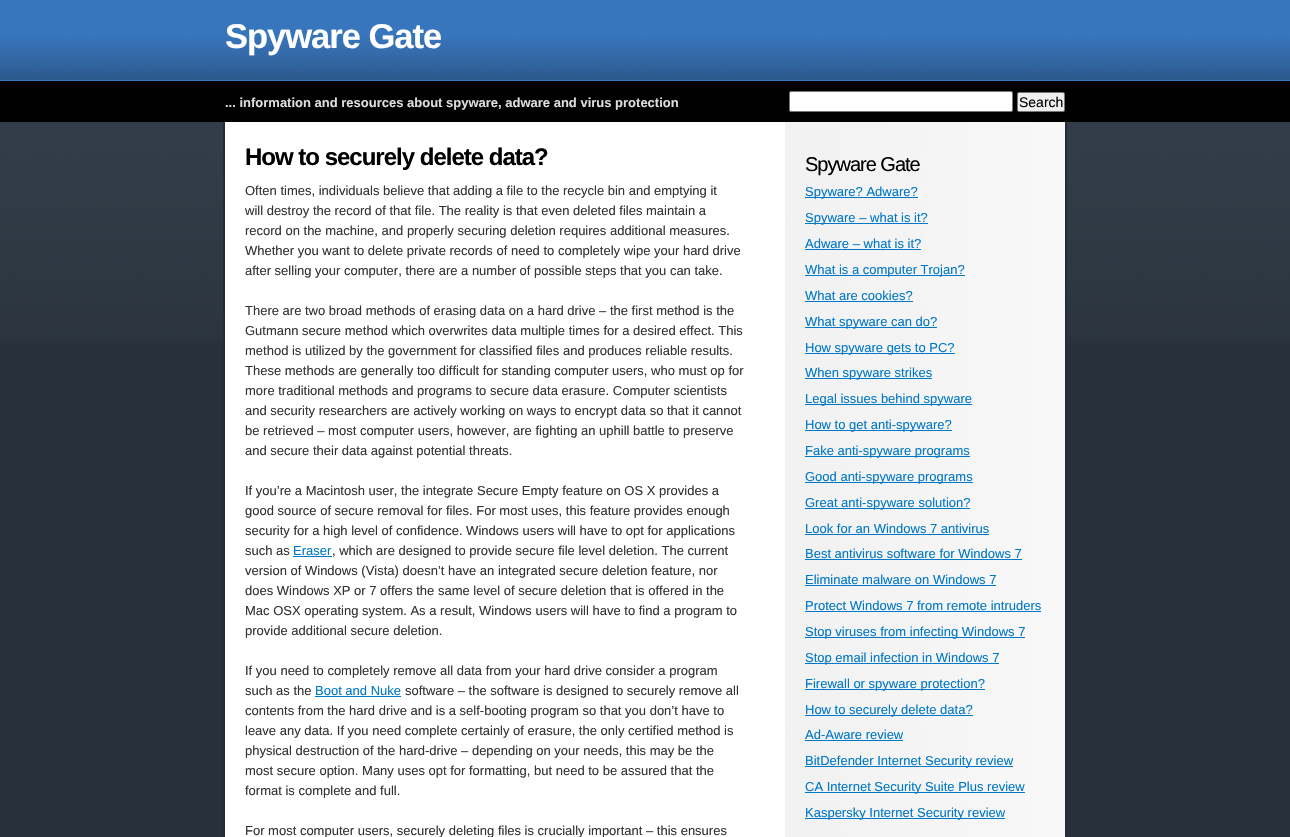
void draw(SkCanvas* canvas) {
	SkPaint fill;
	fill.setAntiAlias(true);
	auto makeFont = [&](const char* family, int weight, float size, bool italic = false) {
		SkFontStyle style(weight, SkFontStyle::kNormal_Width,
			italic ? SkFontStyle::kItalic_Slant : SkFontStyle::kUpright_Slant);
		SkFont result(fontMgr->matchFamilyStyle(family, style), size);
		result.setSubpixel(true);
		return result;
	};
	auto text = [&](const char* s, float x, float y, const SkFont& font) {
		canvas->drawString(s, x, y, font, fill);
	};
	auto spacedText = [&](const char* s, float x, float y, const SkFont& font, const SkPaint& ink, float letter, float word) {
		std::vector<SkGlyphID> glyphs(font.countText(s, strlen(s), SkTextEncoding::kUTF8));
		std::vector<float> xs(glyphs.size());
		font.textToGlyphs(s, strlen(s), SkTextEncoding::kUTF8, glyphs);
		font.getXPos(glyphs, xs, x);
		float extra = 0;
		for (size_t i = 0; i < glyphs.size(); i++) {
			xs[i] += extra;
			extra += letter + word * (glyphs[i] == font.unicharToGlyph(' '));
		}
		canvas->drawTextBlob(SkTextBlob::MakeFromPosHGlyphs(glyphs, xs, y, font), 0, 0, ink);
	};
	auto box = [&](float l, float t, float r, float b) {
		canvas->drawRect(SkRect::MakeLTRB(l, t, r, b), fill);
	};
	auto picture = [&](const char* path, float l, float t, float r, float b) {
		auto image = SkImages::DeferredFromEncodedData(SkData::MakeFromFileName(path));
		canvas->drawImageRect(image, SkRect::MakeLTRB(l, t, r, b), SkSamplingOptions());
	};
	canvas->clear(0xFF28313A);
	picture("image0.png", 0, 122, 1290, 343);
	fill.setColor(0xFF3776BD);
	box(0, 0, 1290, 81);
	picture("image1.png", 0, 37, 1290, 80);
	fill.setColor(0xFF000000);
	box(0, 81, 1290, 122);
	fill.setColor(0xFFFFFFFF);
	canvas->drawRoundRect(SkRect::MakeLTRB(789.5f, 91.5f, 1012.5f, 111.5f), 1.5f, 1.5f, fill);
	fill.setStyle(SkPaint::kStroke_Style);
	fill.setStrokeWidth(1);
	fill.setColor(0xFF767676);
	canvas->drawRoundRect(SkRect::MakeLTRB(789.5f, 91.5f, 1012.5f, 111.5f), 1.5f, 1.5f, fill);
	fill.setStyle(SkPaint::kFill_Style);
	fill.setColor(0xFFEFEFEF);
	canvas->drawRoundRect(SkRect::MakeLTRB(1017.5f, 92.5f, 1064.5f, 111.5f), 1.5f, 1.5f, fill);
	fill.setStyle(SkPaint::kStroke_Style);
	fill.setColor(0xFF767676);
	canvas->drawRoundRect(SkRect::MakeLTRB(1017.5f, 92.5f, 1064.5f, 111.5f), 1.5f, 1.5f, fill);
	fill.setStyle(SkPaint::kFill_Style);
	fill.setColor(0xFFFFFFFF);
	box(225, 122, 785, 837);
	picture("image2.png", 785, 122, 1065, 837);
	fill.setColor(0xFF242C34);
	box(1065, 122, 1067, 837);
	box(223, 122, 225, 837);
	fill.setColor(0xFF0078C8);
	box(293, 556, 332, 557);
	box(315, 696, 401, 697);
	box(805, 197, 918, 198);
	box(805, 223, 928, 224);
	box(805, 249, 921, 250);
	box(805, 275, 965, 276);
	box(805, 301, 913, 302);
	box(805, 327, 937, 328);
	box(805, 353, 955, 354);
	box(805, 378, 932, 379);
	box(805, 404, 972, 405);
	box(805, 430, 952, 431);
	box(805, 456, 970, 457);
	box(805, 482, 973, 483);
	box(805, 508, 970, 509);
	box(805, 534, 989, 535);
	box(805, 559, 1022, 560);
	box(805, 585, 996, 586);
	box(805, 611, 1041, 612);
	box(805, 637, 1025, 638);
	box(805, 663, 999, 664);
	box(805, 689, 985, 690);
	box(805, 715, 973, 716);
	box(805, 740, 903, 741);
	box(805, 766, 1013, 767);
	box(805, 792, 1025, 793);
	box(805, 818, 1005, 819);
	auto font1 = makeFont("Liberation Sans", 700, 34.5f);
	fill.setColor(0xFFFFFFFF);
	spacedText("Spyware Gate", 225, 48, font1, fill, -1, 0);
	auto font2 = makeFont("Liberation Sans", 700, 13);
	fill.setColor(0xFFDDDDDD);
	text("... information and resources about spyware, adware and virus protection", 225, 107, font2);
	auto font3 = makeFont("Liberation Sans", 400, 14);
	fill.setColor(0xFF000000);
	text("Search", 1019, 107, font3);
	auto font4 = makeFont("Liberation Sans", 700, 24);
	spacedText("How to securely delete data?", 245, 165, font4, fill, -1, 0);
	auto font5 = makeFont("Liberation Sans", 400, 13);
	fill.setColor(0xFF333333);
	text("Often times, individuals believe that adding a file to the recycle bin and emptying it", 245, 195, font5);
	text("will destroy the record of that file. The reality is that even deleted files maintain a", 245, 215, font5);
	text("record on the machine, and properly securing deletion requires additional measures.", 245, 235, font5);
	text("Whether you want to delete private records of need to completely wipe your hard drive", 245, 255, font5);
	text("after selling your computer, there are a number of possible steps that you can take.", 245, 275, font5);
	text("There are two broad methods of erasing data on a hard drive – the first method is the", 245, 315, font5);
	text("Gutmann secure method which overwrites data multiple times for a desired effect. This", 245, 335, font5);
	text("method is utilized by the government for classified files and produces reliable results.", 245, 355, font5);
	text("These methods are generally too difficult for standing computer users, who must op for", 245, 375, font5);
	text("more traditional methods and programs to secure data erasure. Computer scientists", 245, 395, font5);
	text("and security researchers are actively working on ways to encrypt data so that it cannot", 245, 415, font5);
	text("be retrieved – most computer users, however, are fighting an uphill battle to preserve", 245, 435, font5);
	text("and secure their data against potential threats.", 245, 455, font5);
	text("If you’re a Macintosh user, the integrate Secure Empty feature on OS X provides a", 245, 495, font5);
	text("good source of secure removal for files. For most uses, this feature provides enough", 245, 515, font5);
	text("security for a high level of confidence. Windows users will have to opt for applications", 245, 535, font5);
	text("such as", 245, 555, font5);
	fill.setColor(0xFF0078C8);
	text("Eraser", 293, 555, font5);
	fill.setColor(0xFF333333);
	text(", which are designed to provide secure file level deletion. The current", 332, 555, font5);
	text("version of Windows (Vista) doesn’t have an integrated secure deletion feature, nor", 245, 575, font5);
	text("does Windows XP or 7 offers the same level of secure deletion that is offered in the", 245, 595, font5);
	text("Mac OSX operating system. As a result, Windows users will have to find a program to", 245, 615, font5);
	text("provide additional secure deletion.", 245, 635, font5);
	text("If you need to completely remove all data from your hard drive consider a program", 245, 675, font5);
	text("such as the", 245, 695, font5);
	fill.setColor(0xFF0078C8);
	text("Boot and Nuke", 315, 695, font5);
	fill.setColor(0xFF333333);
	text("software – the software is designed to securely remove all", 405, 695, font5);
	text("contents from the hard drive and is a self-booting program so that you don’t have to", 245, 715, font5);
	text("leave any data. If you need complete certainly of erasure, the only certified method is", 245, 735, font5);
	text("physical destruction of the hard-drive – depending on your needs, this may be the", 245, 755, font5);
	text("most secure option. Many uses opt for formatting, but need to be assured that the", 245, 775, font5);
	text("format is complete and full.", 245, 795, font5);
	text("For most computer users, securely deleting files is crucially important – this ensures", 245, 835, font5);
	auto font6 = makeFont("Liberation Sans", 400, 20);
	fill.setColor(0xFF000000);
	spacedText("Spyware Gate", 805, 171, font6, fill, -1, 0);
	fill.setColor(0xFF0078C8);
	text("Spyware? Adware?", 805, 196, font5);
	text("Spyware – what is it?", 805, 222, font5);
	text("Adware – what is it?", 805, 248, font5);
	text("What is a computer Trojan?", 805, 274, font5);
	text("What are cookies?", 805, 300, font5);
	text("What spyware can do?", 805, 326, font5);
	text("How spyware gets to PC?", 805, 352, font5);
	text("When spyware strikes", 805, 377, font5);
	text("Legal issues behind spyware", 805, 403, font5);
	text("How to get anti-spyware?", 805, 429, font5);
	text("Fake anti-spyware programs", 805, 455, font5);
	text("Good anti-spyware programs", 805, 481, font5);
	text("Great anti-spyware solution?", 805, 507, font5);
	text("Look for an Windows 7 antivirus", 805, 533, font5);
	text("Best antivirus software for Windows 7", 805, 558, font5);
	text("Eliminate malware on Windows 7", 805, 584, font5);
	text("Protect Windows 7 from remote intruders", 805, 610, font5);
	text("Stop viruses from infecting Windows 7", 805, 636, font5);
	text("Stop email infection in Windows 7", 805, 662, font5);
	text("Firewall or spyware protection?", 805, 688, font5);
	text("How to securely delete data?", 805, 714, font5);
	text("Ad-Aware review", 805, 739, font5);
	text("BitDefender Internet Security review", 805, 765, font5);
	text("CA Internet Security Suite Plus review", 805, 791, font5);
	text("Kaspersky Internet Security review", 805, 817, font5);
}
